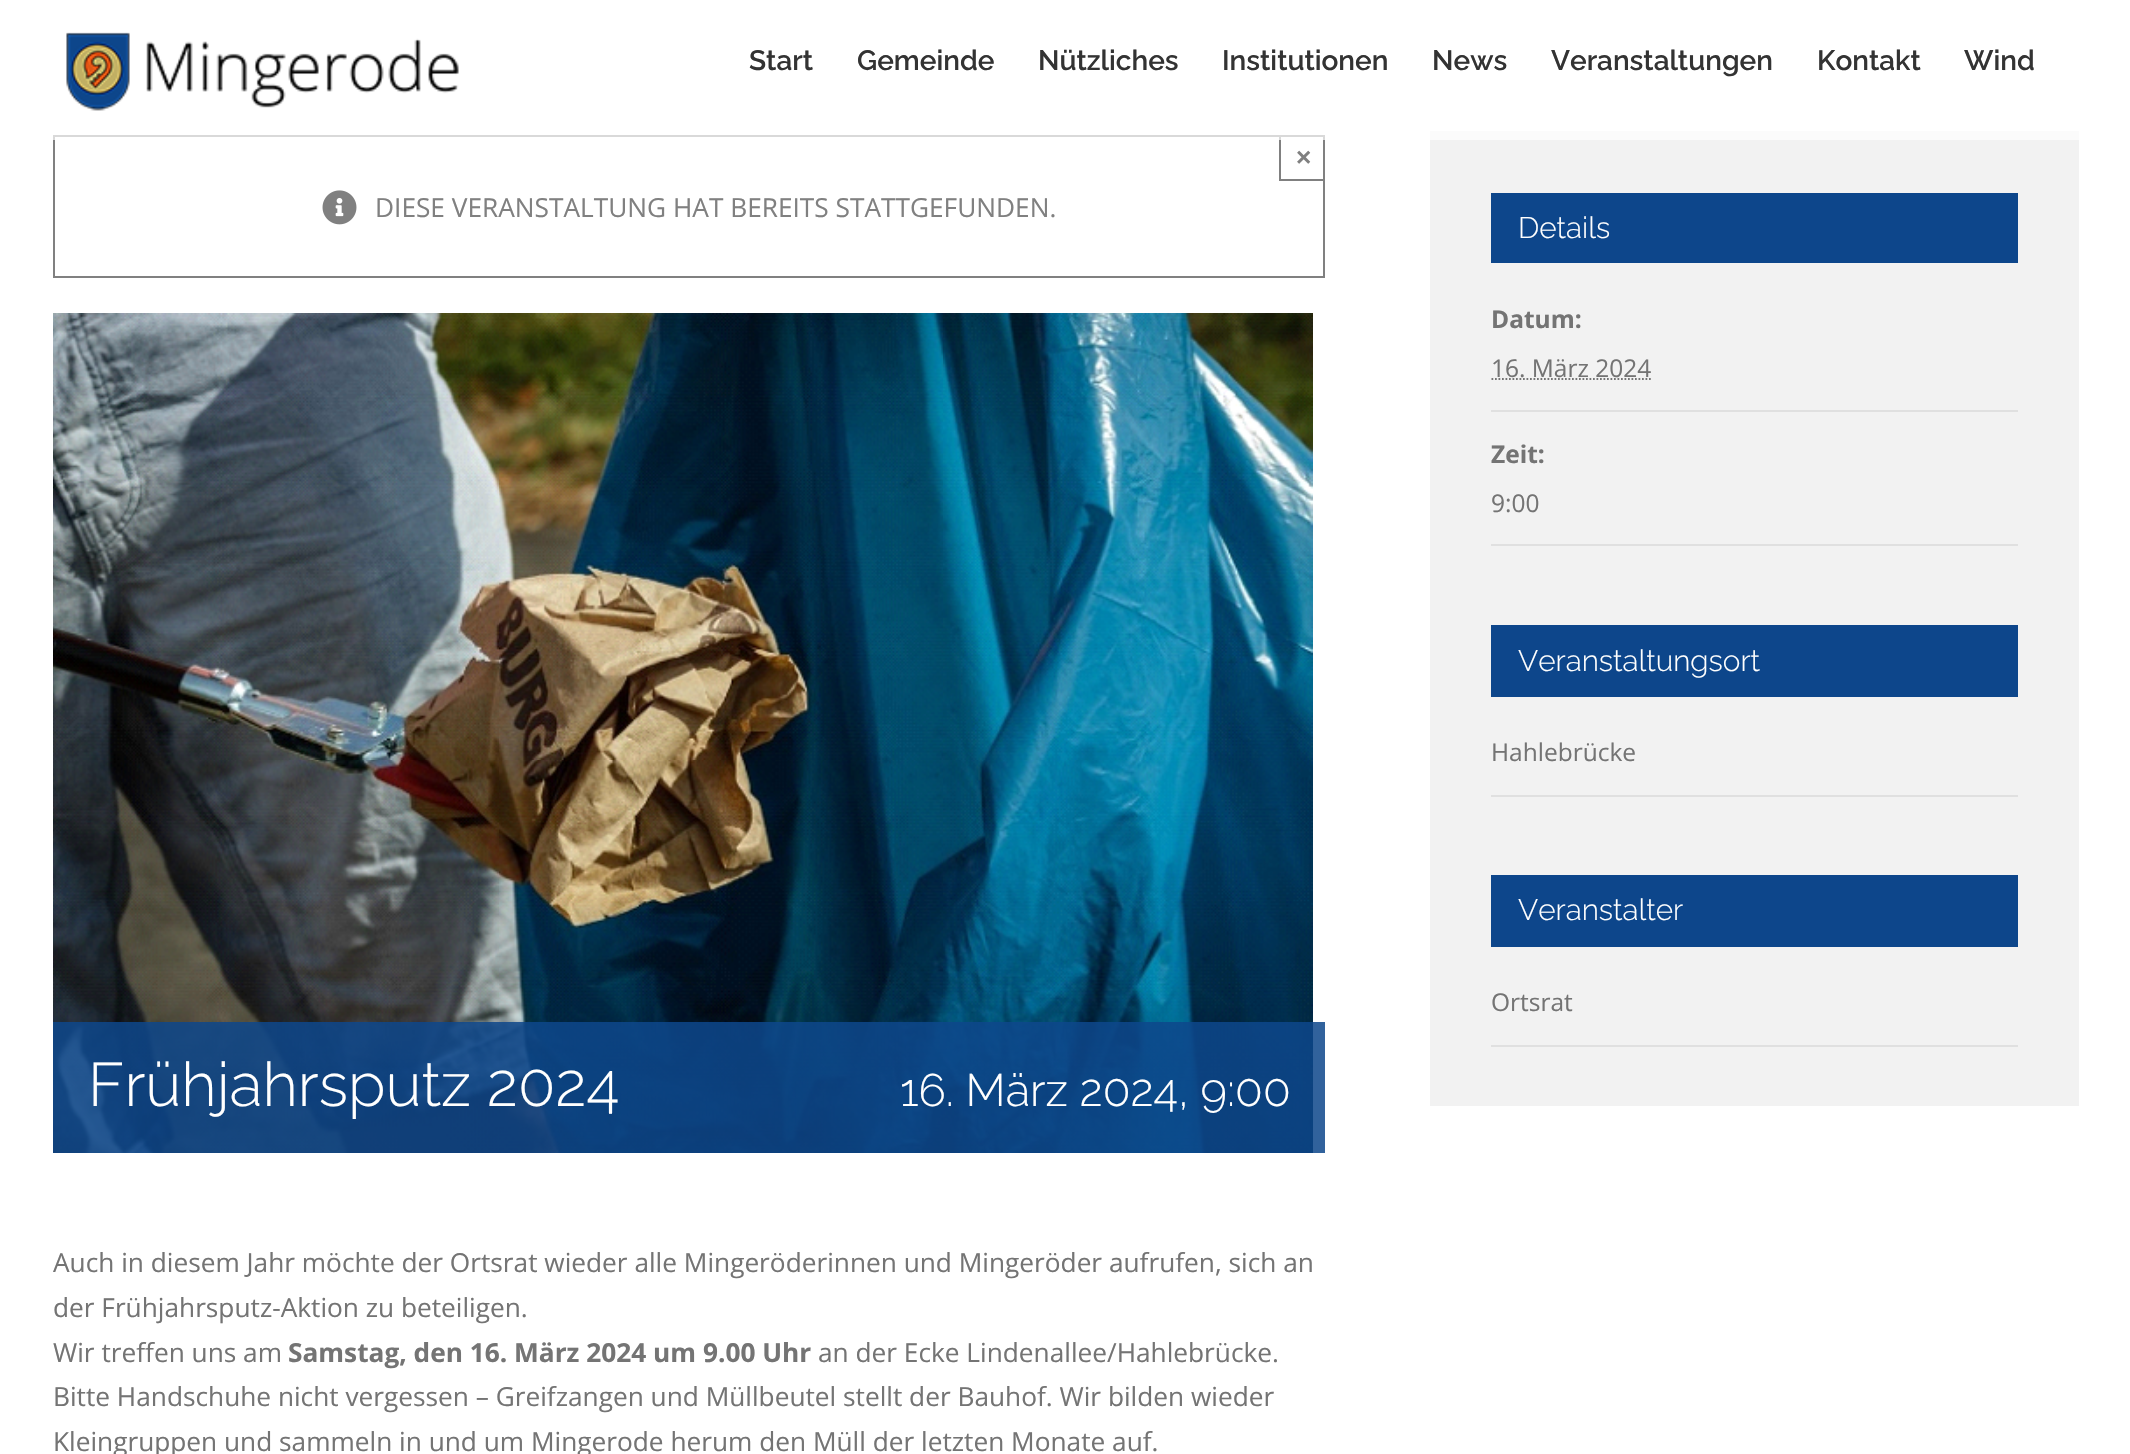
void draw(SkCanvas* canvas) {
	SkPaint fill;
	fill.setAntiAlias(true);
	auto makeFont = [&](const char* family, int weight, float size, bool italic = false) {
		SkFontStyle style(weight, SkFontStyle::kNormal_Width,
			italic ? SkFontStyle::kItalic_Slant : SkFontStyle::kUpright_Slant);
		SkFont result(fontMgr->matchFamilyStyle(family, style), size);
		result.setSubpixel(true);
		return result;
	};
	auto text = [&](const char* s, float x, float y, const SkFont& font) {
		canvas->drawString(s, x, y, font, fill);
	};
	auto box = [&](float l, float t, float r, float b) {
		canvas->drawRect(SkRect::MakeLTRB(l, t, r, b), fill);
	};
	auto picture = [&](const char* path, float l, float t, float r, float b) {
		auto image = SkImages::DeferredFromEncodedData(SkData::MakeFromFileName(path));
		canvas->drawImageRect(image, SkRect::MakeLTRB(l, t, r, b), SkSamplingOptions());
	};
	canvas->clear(0xFFFFFFFF);
	fill.setStyle(SkPaint::kStroke_Style);
	fill.setStrokeWidth(2);
	fill.setColor(0xFF808080);
	canvas->drawRect(SkRect::MakeLTRB(54, 136, 1324, 277), fill);
	fill.setStyle(SkPaint::kFill_Style);
	box(1279, 179, 1325, 181);
	box(1279, 135, 1281, 180);
	fill.setColor(0xFFF2F2F2);
	box(1430, 131, 2079, 1106);
	fill.setColor(0xB3FFFFFF);
	box(53, 131, 2079, 140);
	picture("image0.png", 66, 32, 459, 111);
	picture("image1.png", 322, 190, 357, 225);
	picture("image2.png", 53, 313, 1313, 1153);
	fill.setColor(0xD90D468B);
	box(53, 1022, 1325, 1153);
	fill.setColor(0xFF0D468B);
	box(1491, 193, 2018, 263);
	fill.setColor(0xFFE0E0E0);
	box(1491, 410, 2018, 412);
	fill.setStyle(SkPaint::kStroke_Style);
	fill.setStrokeWidth(1.8f);
	fill.setColor(0xFF747474);
	fill.setPathEffect(SkDashPathEffect::Make({{1.75f, 1.75f}}, 0));
	canvas->drawPath(SkPathBuilder().moveTo(1491.5f, 379).lineTo(1651.5f, 379).detach(), fill);
	fill.setPathEffect(nullptr);
	fill.setStyle(SkPaint::kFill_Style);
	fill.setColor(0xFFE0E0E0);
	box(1491, 544, 2018, 546);
	fill.setColor(0xFF0D468B);
	box(1491, 625, 2018, 697);
	fill.setColor(0xFFE0E0E0);
	box(1491, 795, 2018, 797);
	fill.setColor(0xFF0D468B);
	box(1491, 875, 2018, 947);
	fill.setColor(0xFFE0E0E0);
	box(1491, 1045, 2018, 1047);
	auto font1 = makeFont("Raleway", 600, 28);
	fill.setColor(0xFF333333);
	text("Start", 749, 70, font1);
	canvas->save();
	canvas->clipRect(SkRect::MakeLTRB(858, 18, 1038, 105));
	text("Gemeinde", 857, 70, font1);
	canvas->restore();
	text("Nützliches", 1038, 70, font1);
	text("Institutionen", 1222, 70, font1);
	text("News", 1432, 70, font1);
	text("Veranstaltungen", 1551, 70, font1);
	text("Kontakt", 1817, 70, font1);
	text("Wind", 1964, 70, font1);
	auto font2 = makeFont("Liberation Sans", 700, 26.25f);
	fill.setColor(0xFF808080);
	text("×", 1296, 166, font2);
	auto font3 = makeFont("Open Sans", 400, 26.25f);
	text("DIESE VERANSTALTUNG HAT BEREITS STATTGEFUNDEN.", 375, 217, font3);
	auto font4 = makeFont("Raleway", 300, 61.25f);
	fill.setColor(0xFFFFFFFF);
	text("Frühjahrsputz 2024", 88, 1106, font4);
	auto font5 = makeFont("Raleway", 300, 45.5f);
	text("16. März 2024, 9:00", 900, 1106, font5);
	fill.setColor(0xFF747474);
	text("Auch in diesem Jahr möchte der Ortsrat wieder alle Mingeröderinnen und Mingeröder aufrufen, sich an", 53, 1272, font3);
	text("der Frühjahrsputz-Aktion zu beteiligen.", 53, 1317, font3);
	text("Wir treffen uns am", 53, 1362, font3);
	auto font6 = makeFont("Open Sans", 700, 26.25f);
	text("Samstag, den 16. März 2024 um 9.00 Uhr", 288, 1362, font6);
	text("an der Ecke Lindenallee/Hahlebrücke.", 818, 1362, font3);
	text("Bitte Handschuhe nicht vergessen – Greifzangen und Müllbeutel stellt der Bauhof. Wir bilden wieder", 53, 1406, font3);
	text("Kleingruppen und sammeln in und um Mingerode herum den Müll der letzten Monate auf.", 53, 1451, font3);
	auto font7 = makeFont("Raleway", 300, 29.75f);
	fill.setColor(0xFFFFFFFF);
	text("Details", 1518, 238, font7);
	auto font8 = makeFont("Open Sans", 700, 24.5f);
	fill.setColor(0xFF747474);
	text("Datum:", 1491, 328, font8);
	auto font9 = makeFont("Open Sans", 400, 24.5f);
	text("16. März 2024", 1491, 377, font9);
	text("Zeit:", 1491, 463, font8);
	text("9:00", 1491, 512, font9);
	fill.setColor(0xFFFFFFFF);
	text("Veranstaltungsort", 1518, 671, font7);
	fill.setColor(0xFF747474);
	text("Hahlebrücke", 1491, 761, font9);
	fill.setColor(0xFFFFFFFF);
	text("Veranstalter", 1518, 920, font7);
	fill.setColor(0xFF747474);
	text("Ortsrat", 1491, 1011, font9);
}
